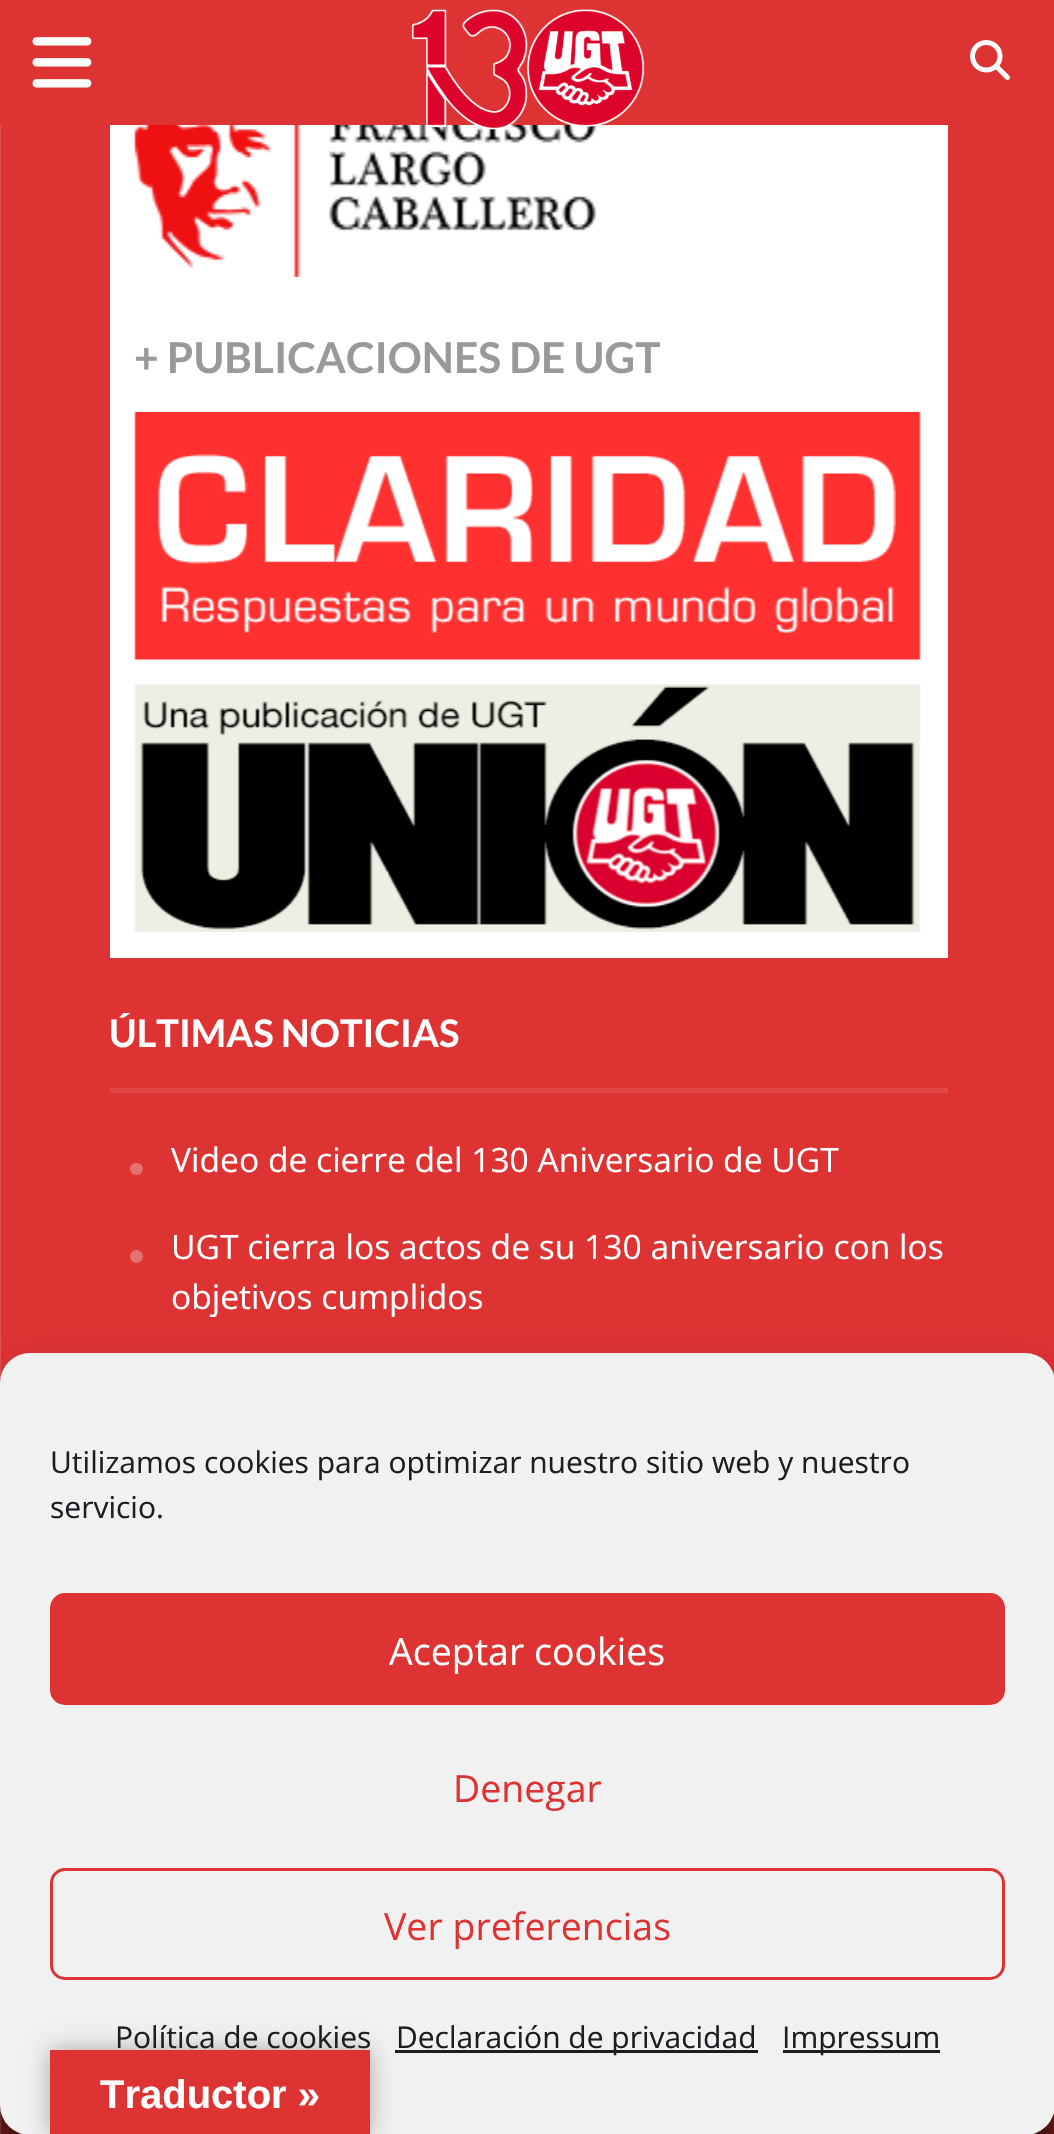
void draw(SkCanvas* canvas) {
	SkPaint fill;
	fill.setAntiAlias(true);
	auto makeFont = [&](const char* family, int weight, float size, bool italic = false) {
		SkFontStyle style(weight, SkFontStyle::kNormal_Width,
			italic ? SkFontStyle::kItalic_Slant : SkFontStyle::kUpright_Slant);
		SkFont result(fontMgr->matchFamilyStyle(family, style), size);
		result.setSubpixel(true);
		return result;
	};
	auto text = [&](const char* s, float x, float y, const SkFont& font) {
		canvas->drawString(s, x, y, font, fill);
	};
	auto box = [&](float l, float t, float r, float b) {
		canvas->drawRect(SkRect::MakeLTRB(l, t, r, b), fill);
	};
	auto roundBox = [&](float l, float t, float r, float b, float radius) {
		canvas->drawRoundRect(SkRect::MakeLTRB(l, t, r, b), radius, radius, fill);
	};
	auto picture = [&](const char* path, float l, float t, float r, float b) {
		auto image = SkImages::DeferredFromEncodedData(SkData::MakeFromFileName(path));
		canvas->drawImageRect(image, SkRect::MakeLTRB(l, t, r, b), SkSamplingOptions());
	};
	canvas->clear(0xFFDD3333);
	picture("image0.png", 32, 37, 92, 88);
	fill.setColor(0xFFFFFFFF);
	box(110, 125, 948, 958);
	picture("image3.png", 134, 125, 597, 277);
	picture("image1.png", 411, 9, 645, 130);
	picture("image2.png", 970, 40, 1010, 80);
	fill.setColor(0xFFE25252);
	box(0, 125, 1, 1383);
	picture("image4.png", 134, 412, 921, 660);
	picture("image5.png", 134, 684, 921, 932);
	fill.setColor(0xFFE04747);
	box(110, 1088, 948, 1093);
	fill.setColor(0xFFE77070);
	roundBox(130, 1163, 143, 1175, 6);
	canvas->drawCircle(136.5f, 1256.5f, 6.5f, fill);
	fill.setColor(0xFF6E1A1A);
	box(1, 2112, 1054, 2134);
	fill.setColor(0xFF843C3C);
	box(0, 2105, 1, 2134);
	fill.setColor(0x3B000000);
	fill.setMaskFilter(SkMaskFilter::MakeBlur(kNormal_SkBlurStyle, 7.5f));
	canvas->drawRoundRect(SkRect::MakeLTRB(0, 1368, 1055, 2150), 30, 30, fill);
	fill.setMaskFilter(nullptr);
	fill.setColor(0x30000000);
	fill.setMaskFilter(SkMaskFilter::MakeBlur(kNormal_SkBlurStyle, 25));
	canvas->drawRoundRect(SkRect::MakeLTRB(0, 1378, 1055, 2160), 30, 30, fill);
	fill.setMaskFilter(nullptr);
	fill.setColor(0xFFF1F1F1);
	roundBox(0, 1353, 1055, 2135, 30);
	fill.setColor(0xFFDD3333);
	canvas->drawRoundRect(SkRect::MakeLTRB(51.5f, 1594.5f, 1003.5f, 1703.5f), 13.5f, 13.5f, fill);
	fill.setStyle(SkPaint::kStroke_Style);
	fill.setStrokeWidth(3);
	canvas->drawRoundRect(SkRect::MakeLTRB(51.5f, 1594.5f, 1003.5f, 1703.5f), 13.5f, 13.5f, fill);
	canvas->drawRoundRect(SkRect::MakeLTRB(51.5f, 1869.5f, 1003.5f, 1978.5f), 13.5f, 13.5f, fill);
	fill.setStyle(SkPaint::kFill_Style);
	fill.setColor(0xFF191E23);
	box(395, 2050, 758, 2053);
	box(783, 2050, 940, 2053);
	fill.setColor(0x4D000000);
	fill.setMaskFilter(SkMaskFilter::MakeBlur(kNormal_SkBlurStyle, 11));
	canvas->drawRect(SkRect::MakeLTRB(50, 2050, 370, 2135), fill);
	fill.setMaskFilter(nullptr);
	fill.setColor(0xFFDD3333);
	box(50, 2050, 370, 2134);
	auto font1 = makeFont("Lato", 700, 42.5f);
	fill.setColor(0xFF999999);
	text("+ PUBLICACIONES DE UGT", 134, 373, font1);
	auto font2 = makeFont("Lato", 700, 38);
	fill.setColor(0xFFFFFFFF);
	text("ÚLTIMAS NOTICIAS", 109, 1047, font2);
	auto font3 = makeFont("Open Sans", 400, 33.6f);
	text("Video de cierre del 130 Aniversario de UGT", 171, 1172, font3);
	text("UGT cierra los actos de su 130 aniversario con los", 171, 1259, font3);
	text("objetivos cumplidos", 171, 1309, font3);
	auto font4 = makeFont("Open Sans", 400, 30);
	fill.setColor(0xFF191E23);
	text("Utilizamos cookies para optimizar nuestro sitio web y nuestro", 50, 1473, font4);
	text("servicio.", 50, 1518, font4);
	auto font5 = makeFont("Open Sans", 400, 37.5f);
	fill.setColor(0xFFFFFFFF);
	text("Aceptar cookies", 389, 1665, font5);
	fill.setColor(0xFFDD3333);
	text("Denegar", 453, 1802, font5);
	text("Ver preferencias", 384, 1940, font5);
	fill.setColor(0xFF191E23);
	text("Política de cookies", 115, 2048, font4);
	text("Declaración de privacidad", 396, 2048, font4);
	text("Impressum", 782, 2048, font4);
	auto font6 = makeFont("Liberation Sans", 700, 40);
	fill.setColor(0xFFFFFFFF);
	text("Traductor »", 100, 2108, font6);
}
